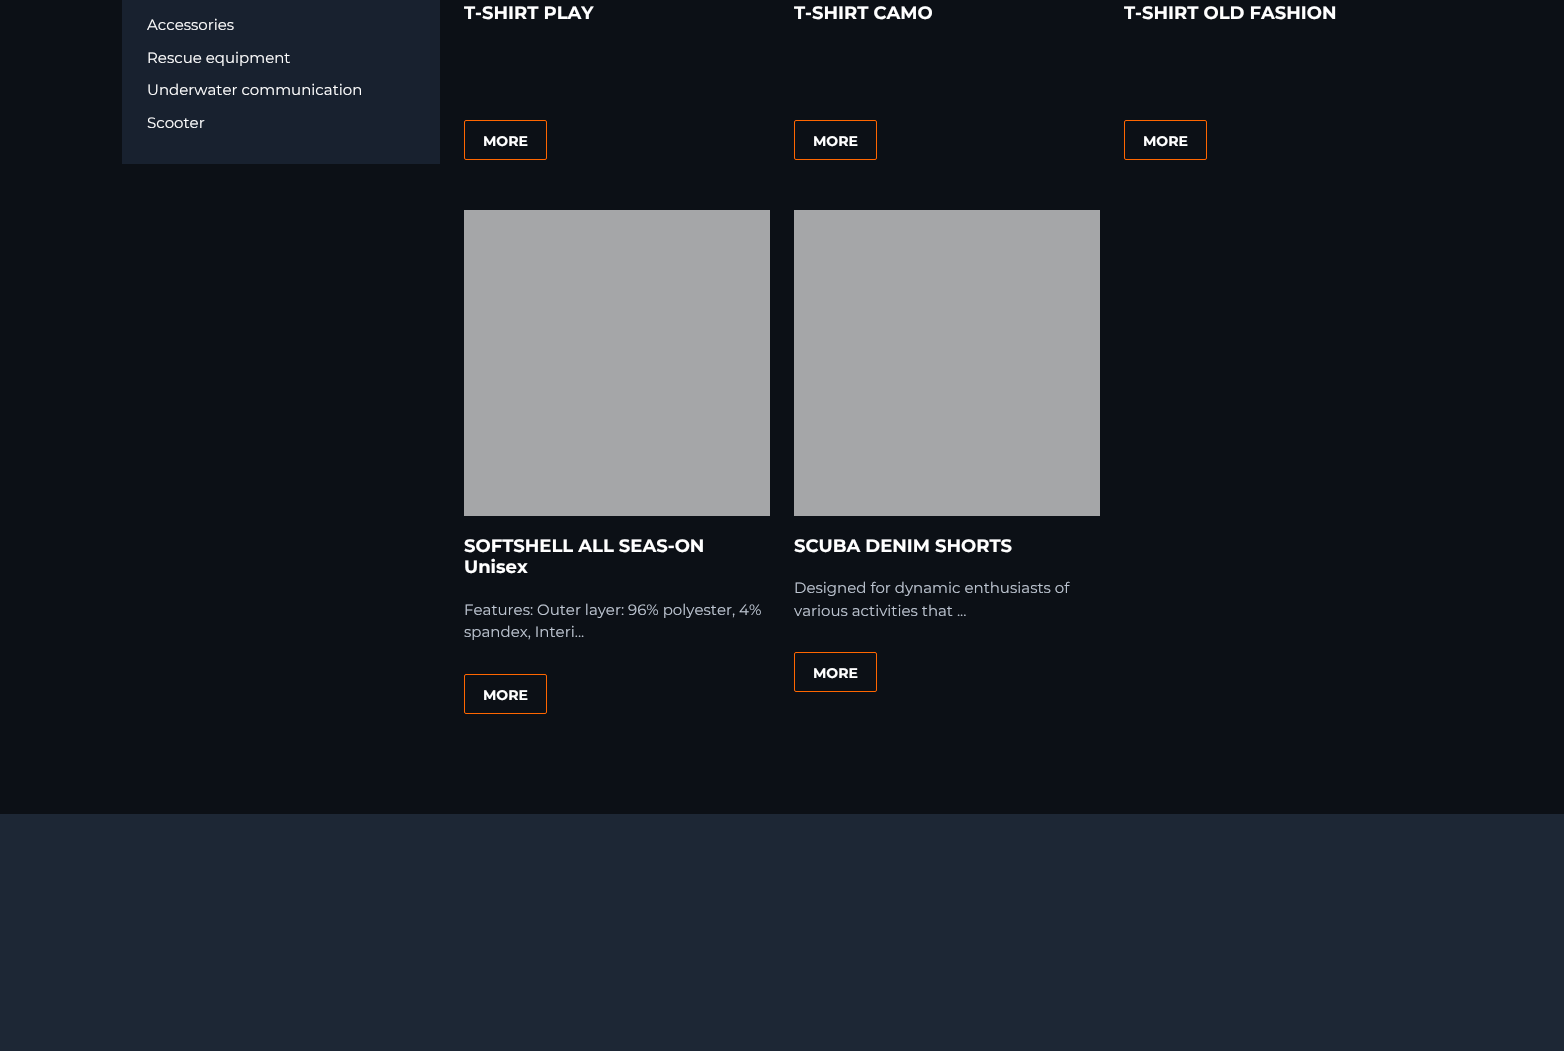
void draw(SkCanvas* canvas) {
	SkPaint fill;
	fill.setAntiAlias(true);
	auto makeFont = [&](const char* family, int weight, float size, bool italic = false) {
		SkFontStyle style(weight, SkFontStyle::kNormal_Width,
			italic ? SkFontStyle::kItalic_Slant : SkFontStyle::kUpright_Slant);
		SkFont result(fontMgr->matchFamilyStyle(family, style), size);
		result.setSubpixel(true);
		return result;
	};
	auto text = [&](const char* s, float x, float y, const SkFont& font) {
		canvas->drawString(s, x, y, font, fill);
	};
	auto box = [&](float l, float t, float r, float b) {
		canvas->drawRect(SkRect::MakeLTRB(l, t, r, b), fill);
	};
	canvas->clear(0xFF0C1016);
	fill.setColor(0xFF18212F);
	box(122, 0, 440, 164);
	fill.setStyle(SkPaint::kStroke_Style);
	fill.setStrokeWidth(1);
	fill.setColor(0xFFFF6600);
	canvas->drawRoundRect(SkRect::MakeLTRB(464.5f, 120.5f, 546.5f, 159.5f), 1.5f, 1.5f, fill);
	canvas->drawRoundRect(SkRect::MakeLTRB(794.5f, 120.5f, 876.5f, 159.5f), 1.5f, 1.5f, fill);
	canvas->drawRoundRect(SkRect::MakeLTRB(1124.5f, 120.5f, 1206.5f, 159.5f), 1.5f, 1.5f, fill);
	fill.setStyle(SkPaint::kFill_Style);
	fill.setColor(0xFFA5A6A8);
	box(464, 210, 770, 516);
	fill.setStyle(SkPaint::kStroke_Style);
	fill.setColor(0xFFFF6600);
	canvas->drawRoundRect(SkRect::MakeLTRB(464.5f, 674.5f, 546.5f, 713.5f), 1.5f, 1.5f, fill);
	fill.setStyle(SkPaint::kFill_Style);
	fill.setColor(0xFFA5A6A8);
	box(794, 210, 1100, 516);
	fill.setStyle(SkPaint::kStroke_Style);
	fill.setColor(0xFFFF6600);
	canvas->drawRoundRect(SkRect::MakeLTRB(794.5f, 652.5f, 876.5f, 691.5f), 1.5f, 1.5f, fill);
	fill.setStyle(SkPaint::kFill_Style);
	fill.setColor(0xFF1D2735);
	box(0, 814, 1564, 1051);
	auto font1 = makeFont("Montserrat", 400, 15);
	fill.setColor(0xFFFFFFFF);
	text("Accessories", 147, 30, font1);
	text("Rescue equipment", 147, 63, font1);
	text("Underwater communication", 147, 95, font1);
	text("Scooter", 147, 128, font1);
	auto font2 = makeFont("Montserrat", 700, 18);
	text("T-SHIRT PLAY", 464, 19, font2);
	auto font3 = makeFont("Montserrat", 700, 14);
	text("MORE", 483, 146, font3);
	text("T-SHIRT CAMO", 794, 19, font2);
	text("MORE", 813, 146, font3);
	text("T-SHIRT OLD FASHION", 1124, 19, font2);
	text("MORE", 1143, 146, font3);
	text("SOFTSHELL ALL SEAS-ON", 464, 552, font2);
	text("Unisex", 464, 573, font2);
	fill.setColor(0xFFBDC5D1);
	text("Features: Outer layer: 96% polyester, 4%", 464, 615, font1);
	text("spandex, Interi...", 464, 637, font1);
	fill.setColor(0xFFFFFFFF);
	text("MORE", 483, 700, font3);
	text("SCUBA DENIM SHORTS", 794, 552, font2);
	fill.setColor(0xFFBDC5D1);
	text("Designed for dynamic enthusiasts of", 794, 593, font1);
	text("various activities that ...", 794, 616, font1);
	fill.setColor(0xFFFFFFFF);
	text("MORE", 813, 678, font3);
}
